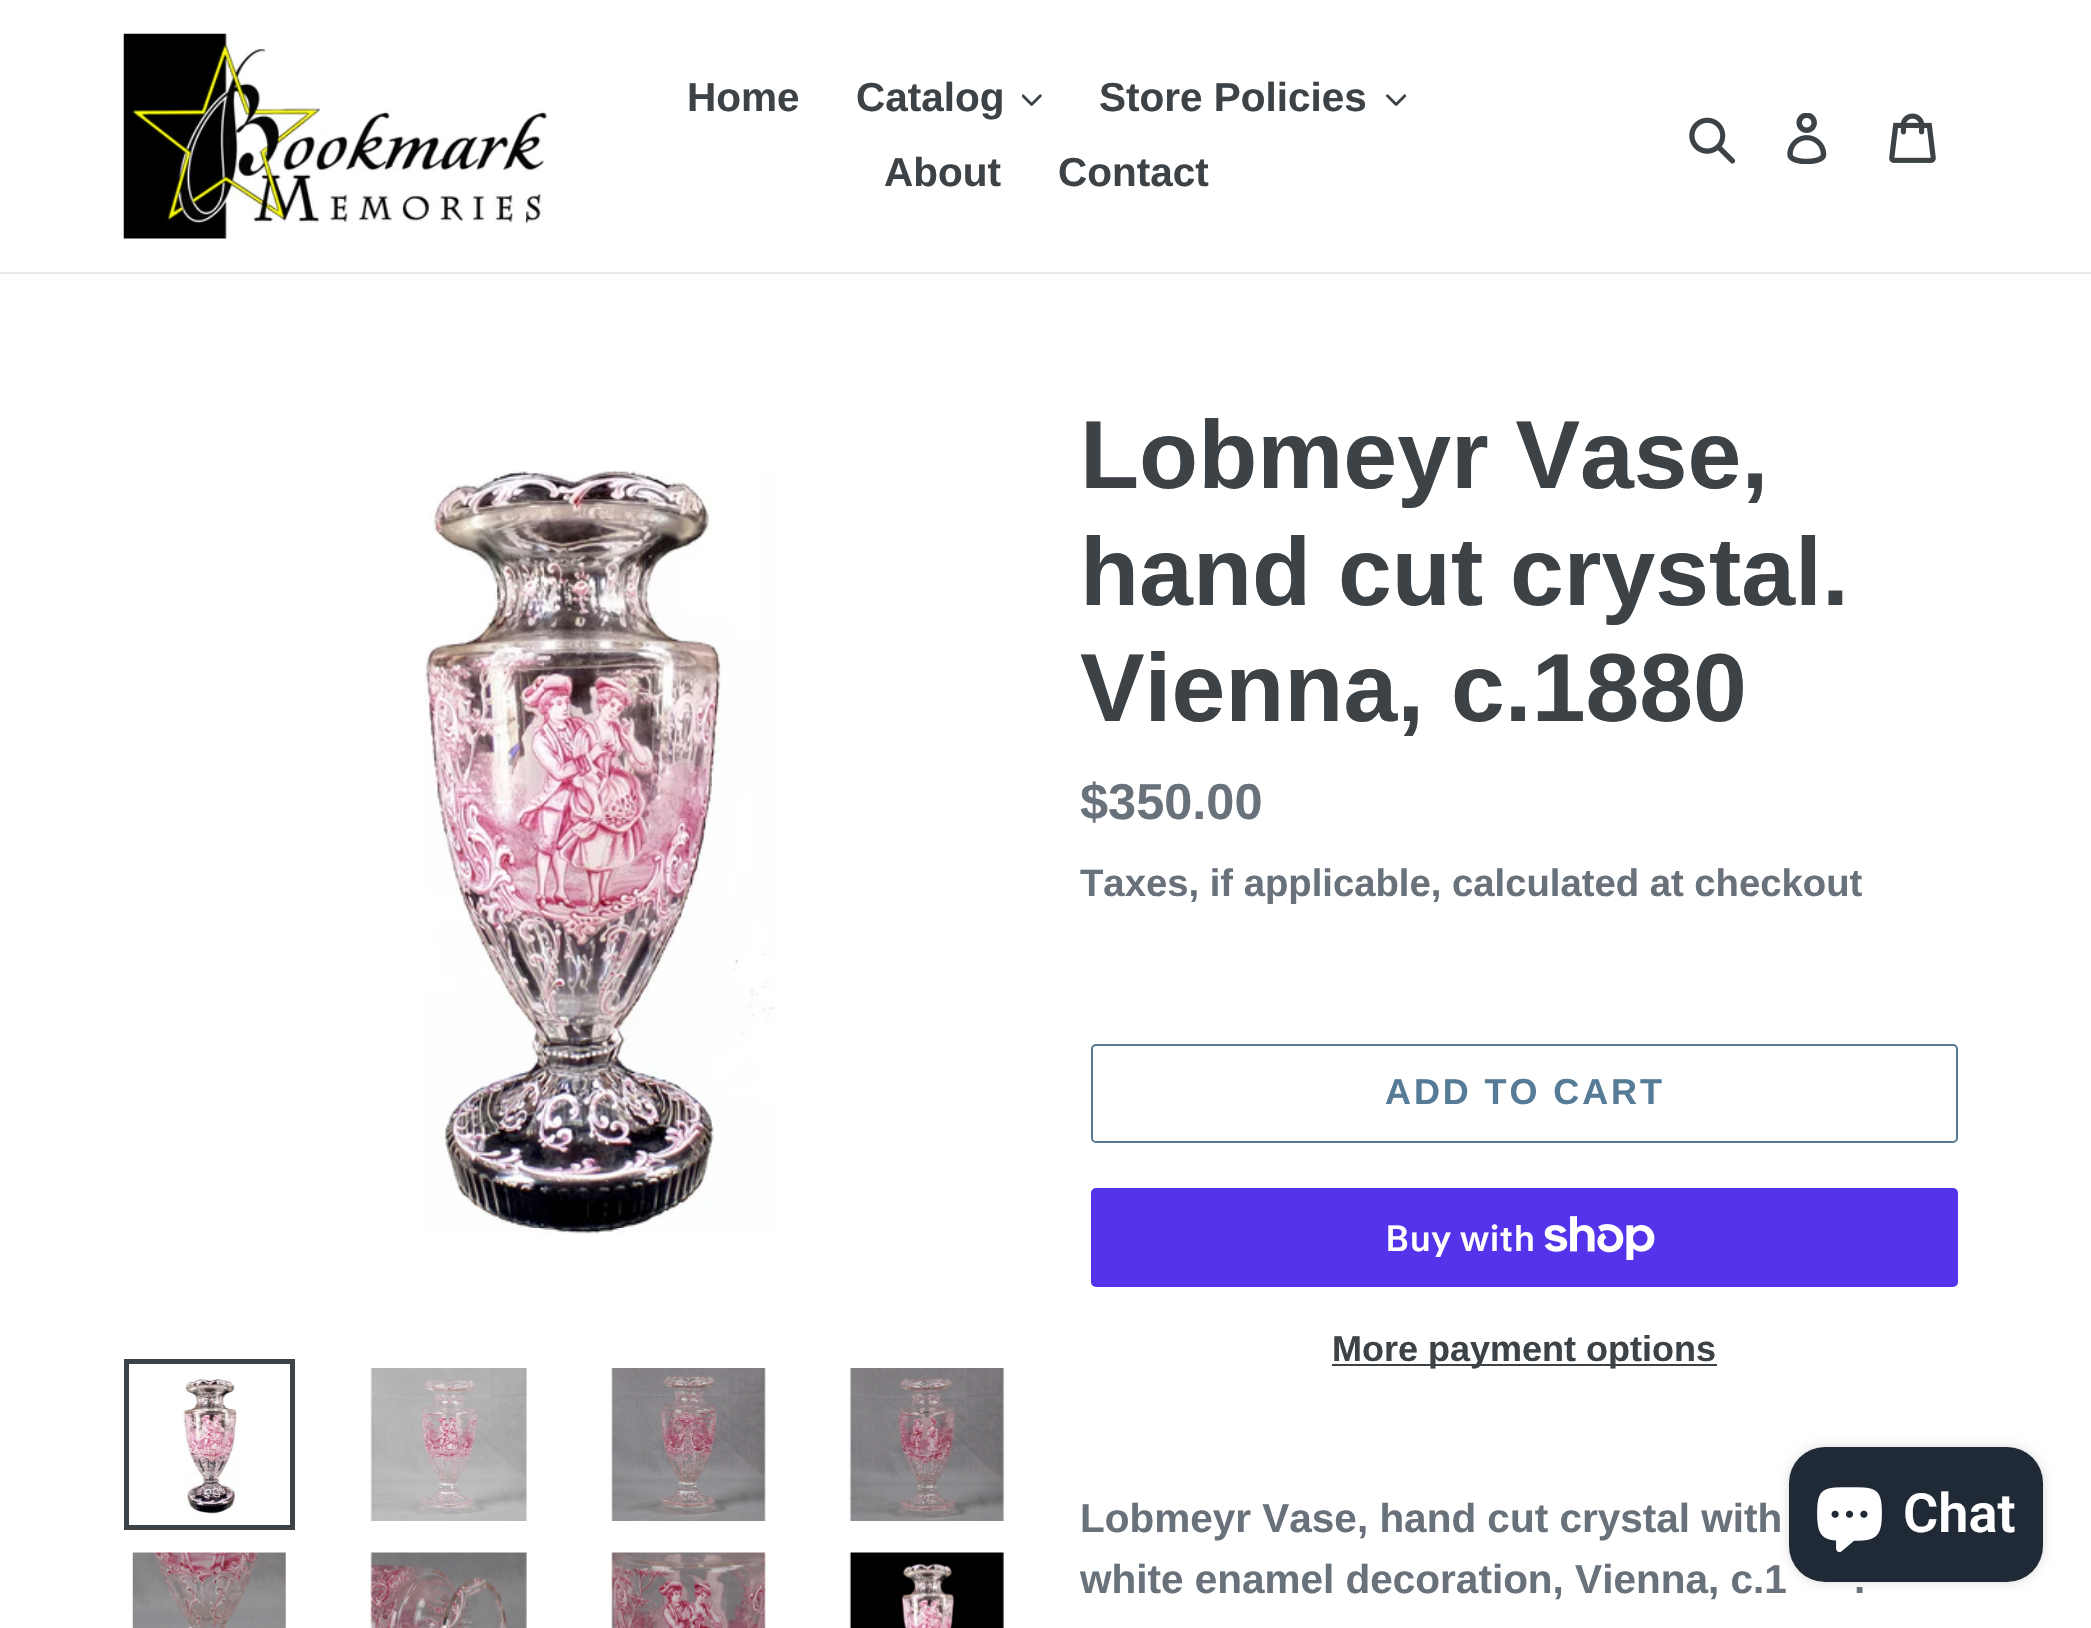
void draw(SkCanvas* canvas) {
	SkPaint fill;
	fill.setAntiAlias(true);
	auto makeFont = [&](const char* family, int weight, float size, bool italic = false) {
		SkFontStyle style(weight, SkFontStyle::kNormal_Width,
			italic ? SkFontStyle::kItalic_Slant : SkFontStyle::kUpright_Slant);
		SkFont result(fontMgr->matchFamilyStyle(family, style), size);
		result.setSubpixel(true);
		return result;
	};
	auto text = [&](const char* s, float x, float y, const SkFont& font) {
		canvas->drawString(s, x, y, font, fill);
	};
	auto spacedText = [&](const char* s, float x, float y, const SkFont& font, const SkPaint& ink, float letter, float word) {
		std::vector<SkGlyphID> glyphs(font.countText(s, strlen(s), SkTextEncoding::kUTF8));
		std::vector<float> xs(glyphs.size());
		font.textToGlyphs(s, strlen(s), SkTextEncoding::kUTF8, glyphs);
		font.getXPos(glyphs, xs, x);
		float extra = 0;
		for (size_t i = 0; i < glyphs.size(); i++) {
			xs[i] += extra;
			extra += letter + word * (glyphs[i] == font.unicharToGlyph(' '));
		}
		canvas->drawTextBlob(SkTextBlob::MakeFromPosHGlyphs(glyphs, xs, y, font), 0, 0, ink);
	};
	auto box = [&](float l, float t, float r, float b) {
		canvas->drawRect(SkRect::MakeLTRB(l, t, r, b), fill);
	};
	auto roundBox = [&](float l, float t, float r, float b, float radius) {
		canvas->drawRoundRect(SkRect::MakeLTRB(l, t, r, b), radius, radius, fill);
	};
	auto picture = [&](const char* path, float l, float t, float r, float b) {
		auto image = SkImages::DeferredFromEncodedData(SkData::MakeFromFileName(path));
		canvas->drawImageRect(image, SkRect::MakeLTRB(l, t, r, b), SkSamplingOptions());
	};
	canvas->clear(0xFFFFFFFF);
	fill.setColor(0xFFE8E9EB);
	box(0, 272, 2091, 274);
	picture("image0.png", 123, 33, 549, 239);
	picture("image1.png", 1022, 94, 1042, 106);
	picture("image2.png", 1386, 94, 1406, 106);
	picture("image3.png", 1689, 117, 1736, 164);
	picture("image4.png", 1787, 113, 1827, 164);
	picture("image5.png", 1889, 113, 1936, 163);
	picture("image6.png", 423, 470, 775, 1234);
	fill.setStyle(SkPaint::kStroke_Style);
	fill.setStrokeWidth(5);
	fill.setColor(0xFF3D4246);
	canvas->drawRect(SkRect::MakeLTRB(126.5f, 1361.5f, 292.5f, 1527.5f), fill);
	picture("image7.png", 182, 1379, 237, 1515);
	picture("image8.png", 370, 1368, 527, 1521);
	picture("image9.png", 611, 1368, 766, 1521);
	picture("image10.png", 849, 1368, 1004, 1521);
	picture("image11.png", 132, 1552, 286, 1628);
	picture("image12.png", 370, 1552, 527, 1628);
	picture("image13.png", 611, 1552, 766, 1628);
	picture("image14.png", 849, 1552, 1004, 1628);
	fill.setStrokeWidth(2);
	fill.setColor(0xFF557B97);
	canvas->drawRoundRect(SkRect::MakeLTRB(1092, 1045, 1957, 1142), 4, 4, fill);
	fill.setStyle(SkPaint::kFill_Style);
	fill.setColor(0xFF5433EB);
	roundBox(1091, 1188, 1958, 1287, 5);
	picture("image15.png", 1544, 1216, 1655, 1260);
	fill.setColor(0xFF3D4246);
	box(1332, 1364, 1717, 1366);
	fill.setColor(0x26000000);
	fill.setMaskFilter(SkMaskFilter::MakeBlur(kNormal_SkBlurStyle, 5.5f));
	canvas->drawRoundRect(SkRect::MakeLTRB(1789, 1447, 2043, 1582), 36, 36, fill);
	fill.setMaskFilter(nullptr);
	fill.setColor(0xFF202A36);
	roundBox(1789, 1447, 2043, 1582, 36);
	picture("image16.png", 1817, 1487, 1882, 1552);
	auto font1 = makeFont("Liberation Sans", 700, 40.5f);
	fill.setColor(0xFF3D4246);
	text("Home", 687, 111, font1);
	text("Catalog", 856, 111, font1);
	text("Store Policies", 1099, 111, font1);
	text("About", 884, 186, font1);
	text("Contact", 1058, 186, font1);
	auto font2 = makeFont("Liberation Sans", 700, 96.75f);
	text("Lobmeyr Vase,", 1080, 488, font2);
	text("hand cut crystal.", 1080, 605, font2);
	text("Vienna, c.1880", 1080, 721, font2);
	auto font3 = makeFont("Liberation Sans", 700, 50.5f);
	fill.setColor(0xFF69727B);
	text("$350.00", 1080, 819, font3);
	auto font4 = makeFont("Liberation Sans", 700, 38.25f);
	text("Taxes, if applicable,", 1080, 896, font4);
	text("calculated at checkout", 1452, 896, font4);
	auto font5 = makeFont("Liberation Sans", 700, 36);
	fill.setColor(0xFF557B97);
	spacedText("ADD TO CART", 1385, 1104, font5, fill, 2.9f, 0);
	auto font6 = makeFont("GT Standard", 600, 36);
	fill.setColor(0xFFFFFFFF);
	text("Buy with", 1385, 1251, font6);
	fill.setColor(0xFF3D4246);
	text("More payment options", 1332, 1361, font5);
	fill.setColor(0xFF69727B);
	text("Lobmeyr Vase, hand cut crystal with", 1080, 1532, font1);
	text("white enamel decoration, Vienna, c.1", 1080, 1593, font1);
	text(".", 1854, 1593, font1);
	auto font7 = makeFont("Roboto", 600, 54);
	fill.setColor(0xFFFFFFFF);
	text("Chat", 1903, 1532, font7);
}
